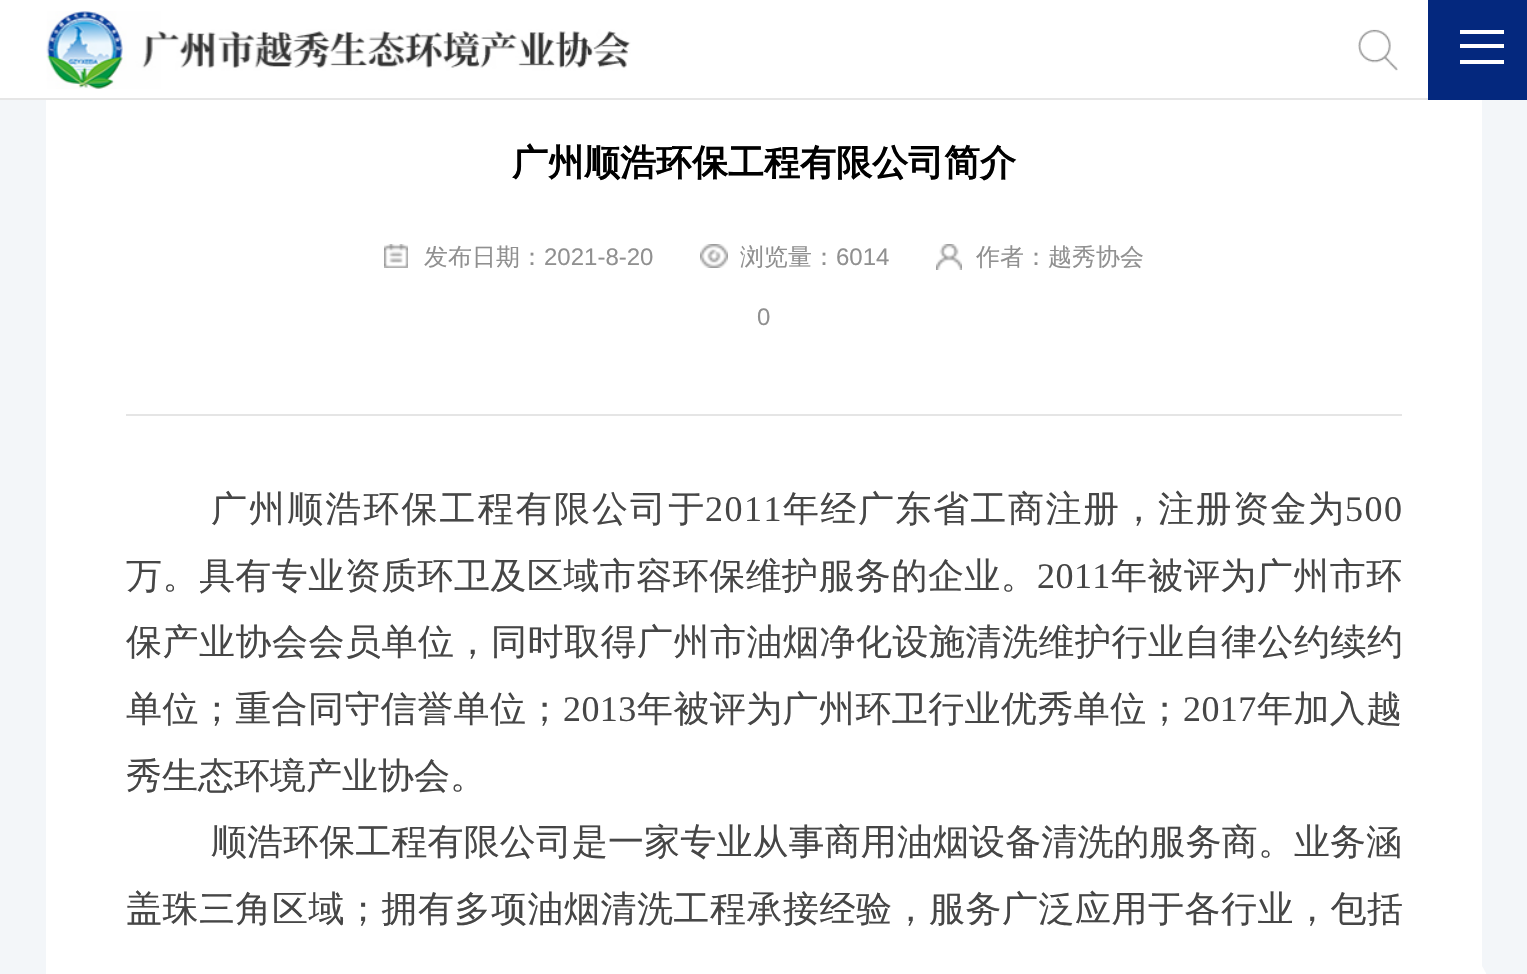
void draw(SkCanvas* canvas) {
	SkPaint fill;
	fill.setAntiAlias(true);
	auto makeFont = [&](const char* family, int weight, float size, bool italic = false) {
		SkFontStyle style(weight, SkFontStyle::kNormal_Width,
			italic ? SkFontStyle::kItalic_Slant : SkFontStyle::kUpright_Slant);
		SkFont result(fontMgr->matchFamilyStyle(family, style), size);
		result.setSubpixel(true);
		return result;
	};
	auto text = [&](const char* s, float x, float y, const SkFont& font) {
		canvas->drawString(s, x, y, font, fill);
	};
	auto spacedText = [&](const char* s, float x, float y, const SkFont& font, const SkPaint& ink, float letter, float word) {
		std::vector<SkGlyphID> glyphs(font.countText(s, strlen(s), SkTextEncoding::kUTF8));
		std::vector<float> xs(glyphs.size());
		font.textToGlyphs(s, strlen(s), SkTextEncoding::kUTF8, glyphs);
		font.getXPos(glyphs, xs, x);
		float extra = 0;
		for (size_t i = 0; i < glyphs.size(); i++) {
			xs[i] += extra;
			extra += letter + word * (glyphs[i] == font.unicharToGlyph(' '));
		}
		canvas->drawTextBlob(SkTextBlob::MakeFromPosHGlyphs(glyphs, xs, y, font), 0, 0, ink);
	};
	auto box = [&](float l, float t, float r, float b) {
		canvas->drawRect(SkRect::MakeLTRB(l, t, r, b), fill);
	};
	auto roundBox = [&](float l, float t, float r, float b, float radius) {
		canvas->drawRoundRect(SkRect::MakeLTRB(l, t, r, b), radius, radius, fill);
	};
	auto picture = [&](const char* path, float l, float t, float r, float b) {
		auto image = SkImages::DeferredFromEncodedData(SkData::MakeFromFileName(path));
		canvas->drawImageRect(image, SkRect::MakeLTRB(l, t, r, b), SkSamplingOptions());
	};
	canvas->clear(0xFFF3F6F9);
	fill.setColor(0xFFFFFFFF);
	box(0, 0, 1428, 98);
	picture("image0.png", 46, 11, 631, 89);
	picture("image1.png", 1358, 29, 1398, 71);
	fill.setColor(0xFF04287E);
	box(1428, 0, 1527, 100);
	fill.setColor(0xFFFFFFFF);
	box(1460, 30, 1504, 34);
	box(1460, 44, 1504, 48);
	box(1460, 60, 1504, 64);
	fill.setColor(0xFFE6E6E6);
	box(0, 98, 1428, 100);
	fill.setColor(0xFFFFFFFF);
	box(46, 100, 1482, 974);
	picture("image2.png", 384, 244, 408, 268);
	picture("image3.png", 700, 244, 728, 268);
	picture("image4.png", 936, 244, 962, 270);
	fill.setColor(0xFFE5E5E5);
	box(126, 414, 1402, 416);
	fill.setColor(0xFFFFFFFF);
	roundBox(1408, 954, 1488, 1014, 40);
	auto font1 = makeFont("WenQuanYi Zen Hei", 700, 36);
	fill.setColor(0xFF000000);
	text("广州顺浩环保工程有限公司简介", 512, 175, font1);
	auto font2 = makeFont("WenQuanYi Zen Hei", 500, 24);
	fill.setColor(0xFF909090);
	text("发布日期：", 424, 265, font2);
	auto font3 = makeFont("Liberation Sans", 400, 24);
	text("2021-8-20", 544, 265, font3);
	text("浏览量：", 740, 265, font2);
	text("6014", 836, 265, font3);
	text("作者：越秀协会", 976, 265, font2);
	text("0", 757, 325, font3);
	auto font4 = makeFont("WenQuanYi Zen Hei", 500, 36);
	fill.setColor(0xFF464646);
	spacedText("广州顺浩环保工程有限公司于", 211, 521, font4, fill, 2.1f, 0);
	auto font5 = makeFont("Liberation Serif", 400, 36);
	spacedText("2011", 705, 521, font5, fill, 1.5f, 0);
	spacedText("年经广东省工商注册，注册资金为", 783, 521, font4, fill, 1.5f, 0);
	spacedText("500", 1345, 521, font5, fill, 1.5f, 0);
	spacedText("万。具有专业资质环卫及区域市容环保维护服务的企业。", 126, 588, font4, fill, 0.45f, 0);
	spacedText("2011", 1037, 588, font5, fill, 0.45f, 0);
	spacedText("年被评为广州市环", 1111, 588, font4, fill, 0.45f, 0);
	spacedText("保产业协会会员单位，同时取得广州市油烟净化设施清洗维护行业自律公约续约", 126, 654, font4, fill, 0.5f, 0);
	spacedText("单位；重合同守信誉单位；", 126, 721, font4, fill, 0.4f, 0);
	spacedText("2013", 563, 721, font5, fill, 0.4f, 0);
	spacedText("年被评为广州环卫行业优秀单位；", 637, 721, font4, fill, 0.4f, 0);
	spacedText("2017", 1183, 721, font5, fill, 0.4f, 0);
	spacedText("年加入越", 1257, 721, font4, fill, 0.4f, 0);
	text("秀生态环境产业协会。", 126, 788, font4);
	spacedText("顺浩环保工程有限公司是一家专业从事商用油烟设备清洗的服务商。业务涵", 211, 854, font4, fill, 0.1f, 0);
	spacedText("盖珠三角区域；拥有多项油烟清洗工程承接经验，服务广泛应用于各行业，包括", 126, 921, font4, fill, 0.5f, 0);
}
